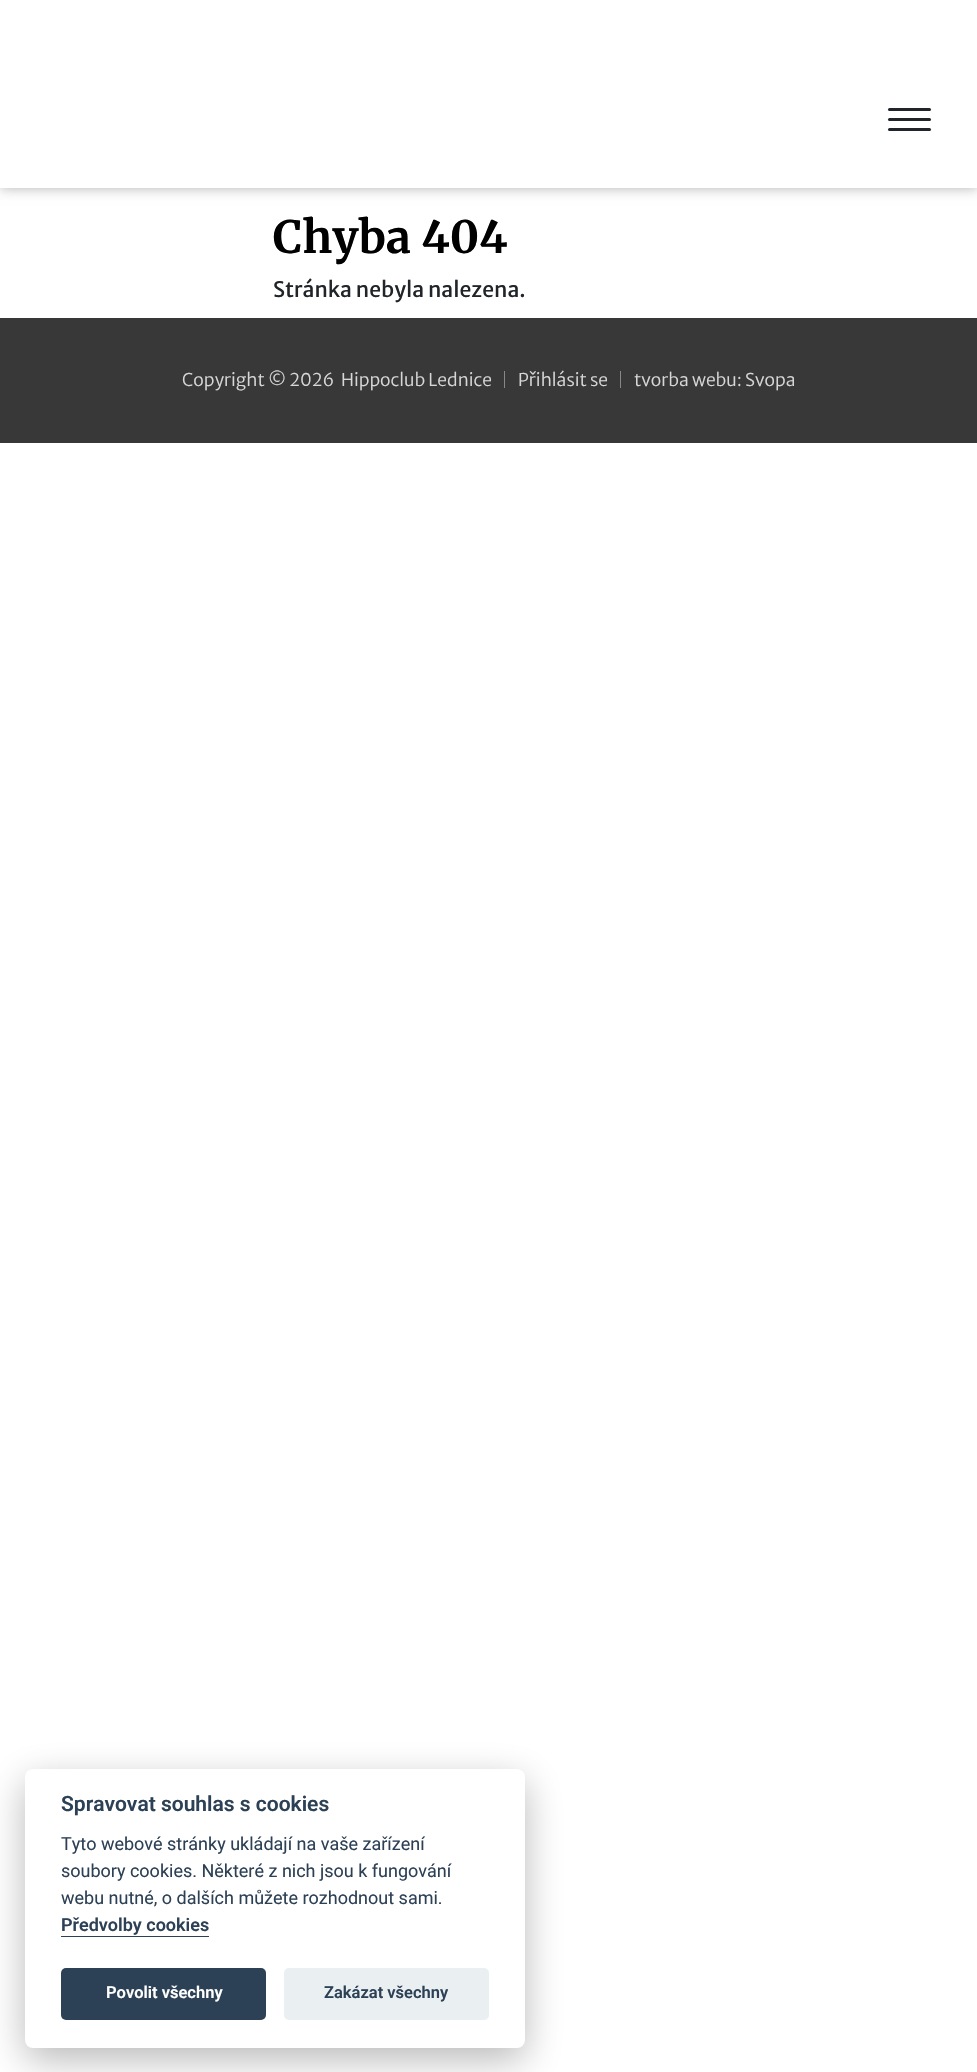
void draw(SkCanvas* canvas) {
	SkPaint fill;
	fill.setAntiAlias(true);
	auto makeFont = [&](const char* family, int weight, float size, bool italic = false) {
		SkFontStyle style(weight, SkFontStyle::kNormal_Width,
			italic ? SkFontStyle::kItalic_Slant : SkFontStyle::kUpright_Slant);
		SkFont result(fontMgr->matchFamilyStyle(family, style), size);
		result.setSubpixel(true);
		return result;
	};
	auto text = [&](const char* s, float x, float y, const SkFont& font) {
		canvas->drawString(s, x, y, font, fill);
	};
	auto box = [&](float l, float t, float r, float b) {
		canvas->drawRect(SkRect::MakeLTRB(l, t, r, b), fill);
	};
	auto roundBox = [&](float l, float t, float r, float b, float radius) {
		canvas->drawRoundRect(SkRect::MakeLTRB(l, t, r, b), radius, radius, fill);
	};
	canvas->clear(0xFFFFFFFF);
	canvas->save();
	canvas->clipPath(SkPathBuilder(SkPathFillType::kEvenOdd).moveTo(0, 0).lineTo(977, 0).lineTo(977, 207).lineTo(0, 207).close().moveTo(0, 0).lineTo(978, 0).lineTo(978, 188).lineTo(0, 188).close().detach(), true);
	fill.setColor(0x4D000000);
	fill.setMaskFilter(SkMaskFilter::MakeBlur(kNormal_SkBlurStyle, 6));
	canvas->drawRect(SkRect::MakeLTRB(0, 0, 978, 188), fill);
	fill.setMaskFilter(nullptr);
	canvas->restore();
	fill.setColor(0xFF212529);
	roundBox(888, 108, 931, 111, 1.5f);
	roundBox(888, 118, 931, 121, 1.5f);
	roundBox(888, 128, 931, 131, 1.5f);
	fill.setColor(0xFF383838);
	box(0, 318, 977, 443);
	fill.setColor(0xFF888888);
	box(504, 371, 505, 388);
	box(620, 371, 621, 388);
	fill.setColor(0x47020203);
	fill.setMaskFilter(SkMaskFilter::MakeBlur(kNormal_SkBlurStyle, 19));
	canvas->drawRoundRect(SkRect::MakeLTRB(25, 1781, 525, 2060), 8, 8, fill);
	fill.setMaskFilter(nullptr);
	fill.setColor(0xFFFFFFFF);
	roundBox(25, 1769, 525, 2048, 8);
	fill.setColor(0xFF2D4156);
	box(61, 1936, 209, 1937);
	roundBox(61, 1968, 266, 2020, 5);
	fill.setColor(0xFFEAEFF2);
	roundBox(284, 1968, 489, 2020, 5);
	auto font1 = makeFont("Merriweather", 700, 44.5f);
	fill.setColor(0xFF000000);
	text("Chyba 404", 273, 253, font1);
	auto font2 = makeFont("Merriweather Sans", 400, 21.25f);
	fill.setColor(0xFF212529);
	text("Stránka nebyla nalezena.", 273, 297, font2);
	auto font3 = makeFont("Merriweather Sans", 300, 17.5f);
	fill.setColor(0xFFD7D7D7);
	text("Copyright © 2026", 182, 386, font3);
	text("Hippoclub Lednice", 341, 386, font3);
	text("Přihlásit se", 518, 386, font3);
	text("tvorba webu: Svopa", 634, 386, font3);
	auto font4 = makeFont("Roboto", 600, 21);
	fill.setColor(0xFF2D4156);
	text("Spravovat souhlas s cookies", 61, 1811, font4);
	auto font5 = makeFont("Roboto", 400, 18);
	text("Tyto webové stránky ukládají na vaše zařízení", 61, 1850, font5);
	text("soubory cookies. Některé z nich jsou k fungování", 61, 1877, font5);
	text("webu nutné, o dalších můžete rozhodnout sami.", 61, 1904, font5);
	auto font6 = makeFont("Roboto", 600, 18);
	text("Předvolby cookies", 61, 1931, font6);
	auto font7 = makeFont("Roboto", 600, 16.5f);
	fill.setColor(0xFFFFFFFF);
	text("Povolit všechny", 106, 1998, font7);
	fill.setColor(0xFF2D4156);
	text("Zakázat všechny", 324, 1998, font7);
}
